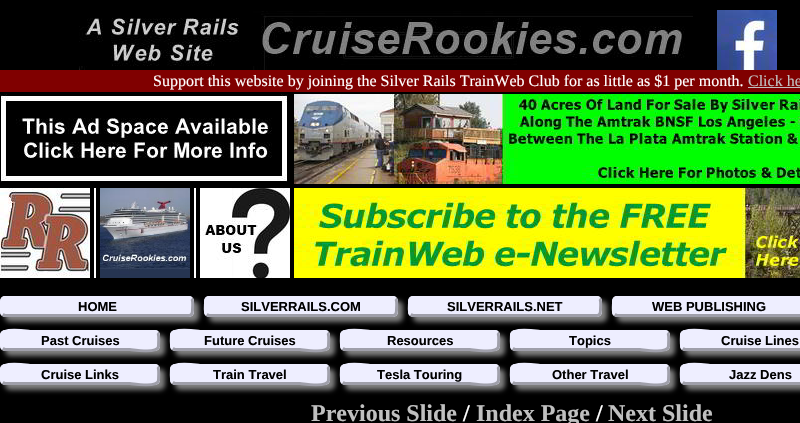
void draw(SkCanvas* canvas) {
	SkPaint fill;
	fill.setAntiAlias(true);
	auto makeFont = [&](const char* family, int weight, float size, bool italic = false) {
		SkFontStyle style(weight, SkFontStyle::kNormal_Width,
			italic ? SkFontStyle::kItalic_Slant : SkFontStyle::kUpright_Slant);
		SkFont result(fontMgr->matchFamilyStyle(family, style), size);
		result.setSubpixel(true);
		return result;
	};
	auto text = [&](const char* s, float x, float y, const SkFont& font) {
		canvas->drawString(s, x, y, font, fill);
	};
	auto box = [&](float l, float t, float r, float b) {
		canvas->drawRect(SkRect::MakeLTRB(l, t, r, b), fill);
	};
	auto roundBox = [&](float l, float t, float r, float b, float radius) {
		canvas->drawRoundRect(SkRect::MakeLTRB(l, t, r, b), radius, radius, fill);
	};
	auto picture = [&](const char* path, float l, float t, float r, float b) {
		auto image = SkImages::DeferredFromEncodedData(SkData::MakeFromFileName(path));
		canvas->drawImageRect(image, SkRect::MakeLTRB(l, t, r, b), SkSamplingOptions());
	};
	canvas->clear(0xFF000000);
	picture("image0.png", 79, 18, 239, 70);
	picture("image1.png", 253, 11, 693, 70);
	picture("image2.png", 717, 10, 777, 70);
	fill.setColor(0xFF800000);
	box(0, 70, 800, 92);
	fill.setColor(0xFFC0C0C0);
	box(748, 87, 800, 88);
	picture("image3.png", 0, 94, 288, 182);
	picture("image4.png", 294, 94, 800, 184);
	picture("image5.png", 0, 188, 90, 278);
	fill.setColor(0xFFFFFFFF);
	box(94, 188, 96, 278);
	picture("image6.png", 100, 188, 190, 278);
	box(194, 188, 196, 278);
	picture("image7.png", 200, 188, 290, 278);
	picture("image8.png", 294, 188, 800, 278);
	fill.setColor(0xFF808080);
	fill.setMaskFilter(SkMaskFilter::MakeBlur(kNormal_SkBlurStyle, 2.5f));
	canvas->drawRoundRect(SkRect::MakeLTRB(5, 301, 199, 322), 5, 5, fill);
	fill.setMaskFilter(nullptr);
	fill.setColor(0xFFEEEEFF);
	roundBox(0, 296, 194, 317, 5);
	fill.setStyle(SkPaint::kStroke_Style);
	fill.setStrokeWidth(3);
	fill.setColor(0xFF9F9FAA);
	canvas->drawPath(SkPathBuilder().moveTo(191.5f, 298.5f).cubicTo(193.5f, 300.5f, 192.5f, 307.5f, 192.5f, 310).cubicTo(192.5f, 312.5f, 192, 315.5f, 189, 315.5f).lineTo(5, 315.5f).lineTo(2.5f, 314.5f).detach(), fill);
	fill.setColor(0xFFEEEEFF);
	canvas->drawPath(SkPathBuilder().moveTo(2.5f, 314.5f).cubicTo(0.5f, 312.5f, 1.5f, 305.5f, 1.5f, 303).cubicTo(1.5f, 300.5f, 2, 297.5f, 5, 297.5f).lineTo(189, 297.5f).lineTo(191.5f, 298.5f).detach(), fill);
	fill.setStyle(SkPaint::kFill_Style);
	fill.setColor(0xFF808080);
	fill.setMaskFilter(SkMaskFilter::MakeBlur(kNormal_SkBlurStyle, 2.5f));
	canvas->drawRoundRect(SkRect::MakeLTRB(209, 301, 403, 322), 5, 5, fill);
	fill.setMaskFilter(nullptr);
	fill.setColor(0xFFEEEEFF);
	roundBox(204, 296, 398, 317, 5);
	fill.setStyle(SkPaint::kStroke_Style);
	fill.setColor(0xFF9F9FAA);
	canvas->drawPath(SkPathBuilder().moveTo(395.5f, 298.5f).cubicTo(397.5f, 300.5f, 396.5f, 307.5f, 396.5f, 310).cubicTo(396.5f, 312.5f, 396, 315.5f, 393, 315.5f).lineTo(209, 315.5f).lineTo(206.5f, 314.5f).detach(), fill);
	fill.setColor(0xFFEEEEFF);
	canvas->drawPath(SkPathBuilder().moveTo(206.5f, 314.5f).cubicTo(204.5f, 312.5f, 205.5f, 305.5f, 205.5f, 303).cubicTo(205.5f, 300.5f, 206, 297.5f, 209, 297.5f).lineTo(393, 297.5f).lineTo(395.5f, 298.5f).detach(), fill);
	fill.setStyle(SkPaint::kFill_Style);
	fill.setColor(0xFF808080);
	fill.setMaskFilter(SkMaskFilter::MakeBlur(kNormal_SkBlurStyle, 2.5f));
	canvas->drawRoundRect(SkRect::MakeLTRB(413, 301, 607, 322), 5, 5, fill);
	fill.setMaskFilter(nullptr);
	fill.setColor(0xFFEEEEFF);
	roundBox(408, 296, 602, 317, 5);
	fill.setStyle(SkPaint::kStroke_Style);
	fill.setColor(0xFF9F9FAA);
	canvas->drawPath(SkPathBuilder().moveTo(599.5f, 298.5f).cubicTo(601.5f, 300.5f, 600.5f, 307.5f, 600.5f, 310).cubicTo(600.5f, 312.5f, 600, 315.5f, 597, 315.5f).lineTo(413, 315.5f).lineTo(410.5f, 314.5f).detach(), fill);
	fill.setColor(0xFFEEEEFF);
	canvas->drawPath(SkPathBuilder().moveTo(410.5f, 314.5f).cubicTo(408.5f, 312.5f, 409.5f, 305.5f, 409.5f, 303).cubicTo(409.5f, 300.5f, 410, 297.5f, 413, 297.5f).lineTo(597, 297.5f).lineTo(599.5f, 298.5f).detach(), fill);
	fill.setStyle(SkPaint::kFill_Style);
	fill.setColor(0xFF808080);
	fill.setMaskFilter(SkMaskFilter::MakeBlur(kNormal_SkBlurStyle, 2.5f));
	canvas->drawRoundRect(SkRect::MakeLTRB(617, 301, 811, 322), 5, 5, fill);
	fill.setMaskFilter(nullptr);
	fill.setColor(0xFFEEEEFF);
	roundBox(612, 296, 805, 317, 5);
	fill.setStyle(SkPaint::kStroke_Style);
	fill.setColor(0xFF9F9FAA);
	canvas->drawPath(SkPathBuilder().moveTo(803.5f, 298.5f).cubicTo(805.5f, 300.5f, 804.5f, 307.5f, 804.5f, 310).cubicTo(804.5f, 312.5f, 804, 315.5f, 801, 315.5f).lineTo(617, 315.5f).lineTo(614.5f, 314.5f).detach(), fill);
	fill.setColor(0xFFEEEEFF);
	canvas->drawPath(SkPathBuilder().moveTo(614.5f, 314.5f).cubicTo(612.5f, 312.5f, 613.5f, 305.5f, 613.5f, 303).cubicTo(613.5f, 300.5f, 614, 297.5f, 617, 297.5f).lineTo(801, 297.5f).lineTo(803.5f, 298.5f).detach(), fill);
	fill.setStyle(SkPaint::kFill_Style);
	fill.setColor(0xFF808080);
	fill.setMaskFilter(SkMaskFilter::MakeBlur(kNormal_SkBlurStyle, 2.5f));
	canvas->drawRoundRect(SkRect::MakeLTRB(5, 335, 165, 356), 5, 5, fill);
	fill.setMaskFilter(nullptr);
	fill.setColor(0xFFEEEEFF);
	roundBox(0, 330, 160, 351, 5);
	fill.setStyle(SkPaint::kStroke_Style);
	fill.setColor(0xFF9F9FAA);
	canvas->drawPath(SkPathBuilder().moveTo(157.5f, 332.5f).cubicTo(159.5f, 334.5f, 158.5f, 344, 158.5f, 346.5f).cubicTo(157.5f, 354, 131, 349.5f, 130, 349.5f).lineTo(5, 349.5f).lineTo(2.5f, 348.5f).detach(), fill);
	fill.setColor(0xFFEEEEFF);
	canvas->drawPath(SkPathBuilder().moveTo(2.5f, 348.5f).cubicTo(0.5f, 346.5f, 1.5f, 337, 1.5f, 334.5f).cubicTo(2.5f, 327, 29, 331.5f, 30, 331.5f).lineTo(155, 331.5f).lineTo(157.5f, 332.5f).detach(), fill);
	fill.setStyle(SkPaint::kFill_Style);
	fill.setColor(0xFF808080);
	fill.setMaskFilter(SkMaskFilter::MakeBlur(kNormal_SkBlurStyle, 2.5f));
	canvas->drawRoundRect(SkRect::MakeLTRB(175, 335, 335, 356), 5, 5, fill);
	fill.setMaskFilter(nullptr);
	fill.setColor(0xFFEEEEFF);
	roundBox(170, 330, 330, 351, 5);
	fill.setStyle(SkPaint::kStroke_Style);
	fill.setColor(0xFF9F9FAA);
	canvas->drawPath(SkPathBuilder().moveTo(327.5f, 332.5f).cubicTo(329.5f, 334.5f, 328.5f, 344, 328.5f, 346.5f).cubicTo(327.5f, 354, 301, 349.5f, 300, 349.5f).lineTo(175, 349.5f).lineTo(172.5f, 348.5f).detach(), fill);
	fill.setColor(0xFFEEEEFF);
	canvas->drawPath(SkPathBuilder().moveTo(172.5f, 348.5f).cubicTo(170.5f, 346.5f, 171.5f, 337, 171.5f, 334.5f).cubicTo(172.5f, 327, 199, 331.5f, 200, 331.5f).lineTo(325, 331.5f).lineTo(327.5f, 332.5f).detach(), fill);
	fill.setStyle(SkPaint::kFill_Style);
	fill.setColor(0xFF808080);
	fill.setMaskFilter(SkMaskFilter::MakeBlur(kNormal_SkBlurStyle, 2.5f));
	canvas->drawRoundRect(SkRect::MakeLTRB(345, 335, 505, 356), 5, 5, fill);
	fill.setMaskFilter(nullptr);
	fill.setColor(0xFFEEEEFF);
	roundBox(340, 330, 500, 351, 5);
	fill.setStyle(SkPaint::kStroke_Style);
	fill.setColor(0xFF9F9FAA);
	canvas->drawPath(SkPathBuilder().moveTo(497.5f, 332.5f).cubicTo(499.5f, 334.5f, 498.5f, 344, 498.5f, 346.5f).cubicTo(497.5f, 354, 471, 349.5f, 470, 349.5f).lineTo(345, 349.5f).lineTo(342.5f, 348.5f).detach(), fill);
	fill.setColor(0xFFEEEEFF);
	canvas->drawPath(SkPathBuilder().moveTo(342.5f, 348.5f).cubicTo(340.5f, 346.5f, 341.5f, 337, 341.5f, 334.5f).cubicTo(342.5f, 327, 369, 331.5f, 370, 331.5f).lineTo(495, 331.5f).lineTo(497.5f, 332.5f).detach(), fill);
	fill.setStyle(SkPaint::kFill_Style);
	fill.setColor(0xFF808080);
	fill.setMaskFilter(SkMaskFilter::MakeBlur(kNormal_SkBlurStyle, 2.5f));
	canvas->drawRoundRect(SkRect::MakeLTRB(515, 335, 675, 356), 5, 5, fill);
	fill.setMaskFilter(nullptr);
	fill.setColor(0xFFEEEEFF);
	roundBox(510, 330, 670, 351, 5);
	fill.setStyle(SkPaint::kStroke_Style);
	fill.setColor(0xFF9F9FAA);
	canvas->drawPath(SkPathBuilder().moveTo(667.5f, 332.5f).cubicTo(669.5f, 334.5f, 668.5f, 344, 668.5f, 346.5f).cubicTo(667.5f, 354, 641, 349.5f, 640, 349.5f).lineTo(515, 349.5f).lineTo(512.5f, 348.5f).detach(), fill);
	fill.setColor(0xFFEEEEFF);
	canvas->drawPath(SkPathBuilder().moveTo(512.5f, 348.5f).cubicTo(510.5f, 346.5f, 511.5f, 337, 511.5f, 334.5f).cubicTo(512.5f, 327, 539, 331.5f, 540, 331.5f).lineTo(665, 331.5f).lineTo(667.5f, 332.5f).detach(), fill);
	fill.setStyle(SkPaint::kFill_Style);
	fill.setColor(0xFF808080);
	fill.setMaskFilter(SkMaskFilter::MakeBlur(kNormal_SkBlurStyle, 2.5f));
	canvas->drawRoundRect(SkRect::MakeLTRB(685, 335, 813, 356), 5, 5, fill);
	fill.setMaskFilter(nullptr);
	fill.setColor(0xFFEEEEFF);
	roundBox(680, 330, 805, 351, 5);
	fill.setStyle(SkPaint::kStroke_Style);
	fill.setColor(0xFF9F9FAA);
	canvas->drawPath(SkPathBuilder().moveTo(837.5f, 332.5f).cubicTo(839.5f, 334.5f, 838.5f, 344, 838.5f, 346.5f).cubicTo(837.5f, 354, 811, 349.5f, 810, 349.5f).lineTo(685, 349.5f).lineTo(682.5f, 348.5f).detach(), fill);
	fill.setColor(0xFFEEEEFF);
	canvas->drawPath(SkPathBuilder().moveTo(682.5f, 348.5f).cubicTo(680.5f, 346.5f, 681.5f, 337, 681.5f, 334.5f).cubicTo(682.5f, 327, 709, 331.5f, 710, 331.5f).lineTo(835, 331.5f).lineTo(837.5f, 332.5f).detach(), fill);
	fill.setStyle(SkPaint::kFill_Style);
	fill.setColor(0xFF808080);
	fill.setMaskFilter(SkMaskFilter::MakeBlur(kNormal_SkBlurStyle, 2.5f));
	canvas->drawRoundRect(SkRect::MakeLTRB(5, 369, 165, 390), 5, 5, fill);
	fill.setMaskFilter(nullptr);
	fill.setColor(0xFFEEEEFF);
	roundBox(0, 364, 160, 385, 5);
	fill.setStyle(SkPaint::kStroke_Style);
	fill.setColor(0xFF9F9FAA);
	canvas->drawPath(SkPathBuilder().moveTo(157.5f, 366.5f).cubicTo(159.5f, 368.5f, 158.5f, 378, 158.5f, 380.5f).cubicTo(157.5f, 388, 131, 383.5f, 130, 383.5f).lineTo(5, 383.5f).lineTo(2.5f, 382.5f).detach(), fill);
	fill.setColor(0xFFEEEEFF);
	canvas->drawPath(SkPathBuilder().moveTo(2.5f, 382.5f).cubicTo(0.5f, 380.5f, 1.5f, 371, 1.5f, 368.5f).cubicTo(2.5f, 361, 29, 365.5f, 30, 365.5f).lineTo(155, 365.5f).lineTo(157.5f, 366.5f).detach(), fill);
	fill.setStyle(SkPaint::kFill_Style);
	fill.setColor(0xFF808080);
	fill.setMaskFilter(SkMaskFilter::MakeBlur(kNormal_SkBlurStyle, 2.5f));
	canvas->drawRoundRect(SkRect::MakeLTRB(175, 369, 335, 390), 5, 5, fill);
	fill.setMaskFilter(nullptr);
	fill.setColor(0xFFEEEEFF);
	roundBox(170, 364, 330, 385, 5);
	fill.setStyle(SkPaint::kStroke_Style);
	fill.setColor(0xFF9F9FAA);
	canvas->drawPath(SkPathBuilder().moveTo(327.5f, 366.5f).cubicTo(329.5f, 368.5f, 328.5f, 378, 328.5f, 380.5f).cubicTo(327.5f, 388, 301, 383.5f, 300, 383.5f).lineTo(175, 383.5f).lineTo(172.5f, 382.5f).detach(), fill);
	fill.setColor(0xFFEEEEFF);
	canvas->drawPath(SkPathBuilder().moveTo(172.5f, 382.5f).cubicTo(170.5f, 380.5f, 171.5f, 371, 171.5f, 368.5f).cubicTo(172.5f, 361, 199, 365.5f, 200, 365.5f).lineTo(325, 365.5f).lineTo(327.5f, 366.5f).detach(), fill);
	fill.setStyle(SkPaint::kFill_Style);
	fill.setColor(0xFF808080);
	fill.setMaskFilter(SkMaskFilter::MakeBlur(kNormal_SkBlurStyle, 2.5f));
	canvas->drawRoundRect(SkRect::MakeLTRB(345, 369, 505, 390), 5, 5, fill);
	fill.setMaskFilter(nullptr);
	fill.setColor(0xFFEEEEFF);
	roundBox(340, 364, 500, 385, 5);
	fill.setStyle(SkPaint::kStroke_Style);
	fill.setColor(0xFF9F9FAA);
	canvas->drawPath(SkPathBuilder().moveTo(497.5f, 366.5f).cubicTo(499.5f, 368.5f, 498.5f, 378, 498.5f, 380.5f).cubicTo(497.5f, 388, 471, 383.5f, 470, 383.5f).lineTo(345, 383.5f).lineTo(342.5f, 382.5f).detach(), fill);
	fill.setColor(0xFFEEEEFF);
	canvas->drawPath(SkPathBuilder().moveTo(342.5f, 382.5f).cubicTo(340.5f, 380.5f, 341.5f, 371, 341.5f, 368.5f).cubicTo(342.5f, 361, 369, 365.5f, 370, 365.5f).lineTo(495, 365.5f).lineTo(497.5f, 366.5f).detach(), fill);
	fill.setStyle(SkPaint::kFill_Style);
	fill.setColor(0xFF808080);
	fill.setMaskFilter(SkMaskFilter::MakeBlur(kNormal_SkBlurStyle, 2.5f));
	canvas->drawRoundRect(SkRect::MakeLTRB(515, 369, 675, 390), 5, 5, fill);
	fill.setMaskFilter(nullptr);
	fill.setColor(0xFFEEEEFF);
	roundBox(510, 364, 670, 385, 5);
	fill.setStyle(SkPaint::kStroke_Style);
	fill.setColor(0xFF9F9FAA);
	canvas->drawPath(SkPathBuilder().moveTo(667.5f, 366.5f).cubicTo(669.5f, 368.5f, 668.5f, 378, 668.5f, 380.5f).cubicTo(667.5f, 388, 641, 383.5f, 640, 383.5f).lineTo(515, 383.5f).lineTo(512.5f, 382.5f).detach(), fill);
	fill.setColor(0xFFEEEEFF);
	canvas->drawPath(SkPathBuilder().moveTo(512.5f, 382.5f).cubicTo(510.5f, 380.5f, 511.5f, 371, 511.5f, 368.5f).cubicTo(512.5f, 361, 539, 365.5f, 540, 365.5f).lineTo(665, 365.5f).lineTo(667.5f, 366.5f).detach(), fill);
	fill.setStyle(SkPaint::kFill_Style);
	fill.setColor(0xFF808080);
	fill.setMaskFilter(SkMaskFilter::MakeBlur(kNormal_SkBlurStyle, 2.5f));
	canvas->drawRoundRect(SkRect::MakeLTRB(685, 369, 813, 390), 5, 5, fill);
	fill.setMaskFilter(nullptr);
	fill.setColor(0xFFEEEEFF);
	roundBox(680, 364, 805, 385, 5);
	fill.setStyle(SkPaint::kStroke_Style);
	fill.setColor(0xFF9F9FAA);
	canvas->drawPath(SkPathBuilder().moveTo(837.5f, 366.5f).cubicTo(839.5f, 368.5f, 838.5f, 378, 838.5f, 380.5f).cubicTo(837.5f, 388, 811, 383.5f, 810, 383.5f).lineTo(685, 383.5f).lineTo(682.5f, 382.5f).detach(), fill);
	fill.setColor(0xFFEEEEFF);
	canvas->drawPath(SkPathBuilder().moveTo(682.5f, 382.5f).cubicTo(680.5f, 380.5f, 681.5f, 371, 681.5f, 368.5f).cubicTo(682.5f, 361, 709, 365.5f, 710, 365.5f).lineTo(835, 365.5f).lineTo(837.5f, 366.5f).detach(), fill);
	auto font1 = makeFont("Liberation Serif", 400, 16);
	fill.setStyle(SkPaint::kFill_Style);
	fill.setColor(0xFFFFFFFF);
	text("Support this website by joining the Silver Rails TrainWeb Club for as little as $1 per month.", 153, 86, font1);
	fill.setColor(0xFFC0C0C0);
	text("Click he", 748, 86, font1);
	auto font2 = makeFont("Liberation Sans", 700, 13);
	fill.setColor(0xFF000000);
	text("HOME", 78, 311, font2);
	text("SILVERRAILS.COM", 241, 311, font2);
	text("SILVERRAILS.NET", 447, 311, font2);
	text("WEB PUBLISHING", 652, 311, font2);
	text("Past Cruises", 41, 345, font2);
	text("Future Cruises", 204, 345, font2);
	text("Resources", 387, 345, font2);
	text("Topics", 569, 345, font2);
	text("Cruise Lines", 721, 345, font2);
	text("Cruise Links", 41, 379, font2);
	text("Train Travel", 213, 379, font2);
	text("Tesla Touring", 377, 379, font2);
	text("Other Travel", 552, 379, font2);
	text("Jazz Dens", 729, 379, font2);
	auto font3 = makeFont("Liberation Serif", 700, 24);
	fill.setColor(0xFFC0C0C0);
	text("Previous Slide", 311, 421, font3);
	fill.setColor(0xFFFFFFFF);
	text("/", 463, 421, font3);
	fill.setColor(0xFFC0C0C0);
	text("Index Page", 476, 421, font3);
	fill.setColor(0xFFFFFFFF);
	text("/", 596, 421, font3);
	fill.setColor(0xFFC0C0C0);
	text("Next Slide", 608, 421, font3);
}
